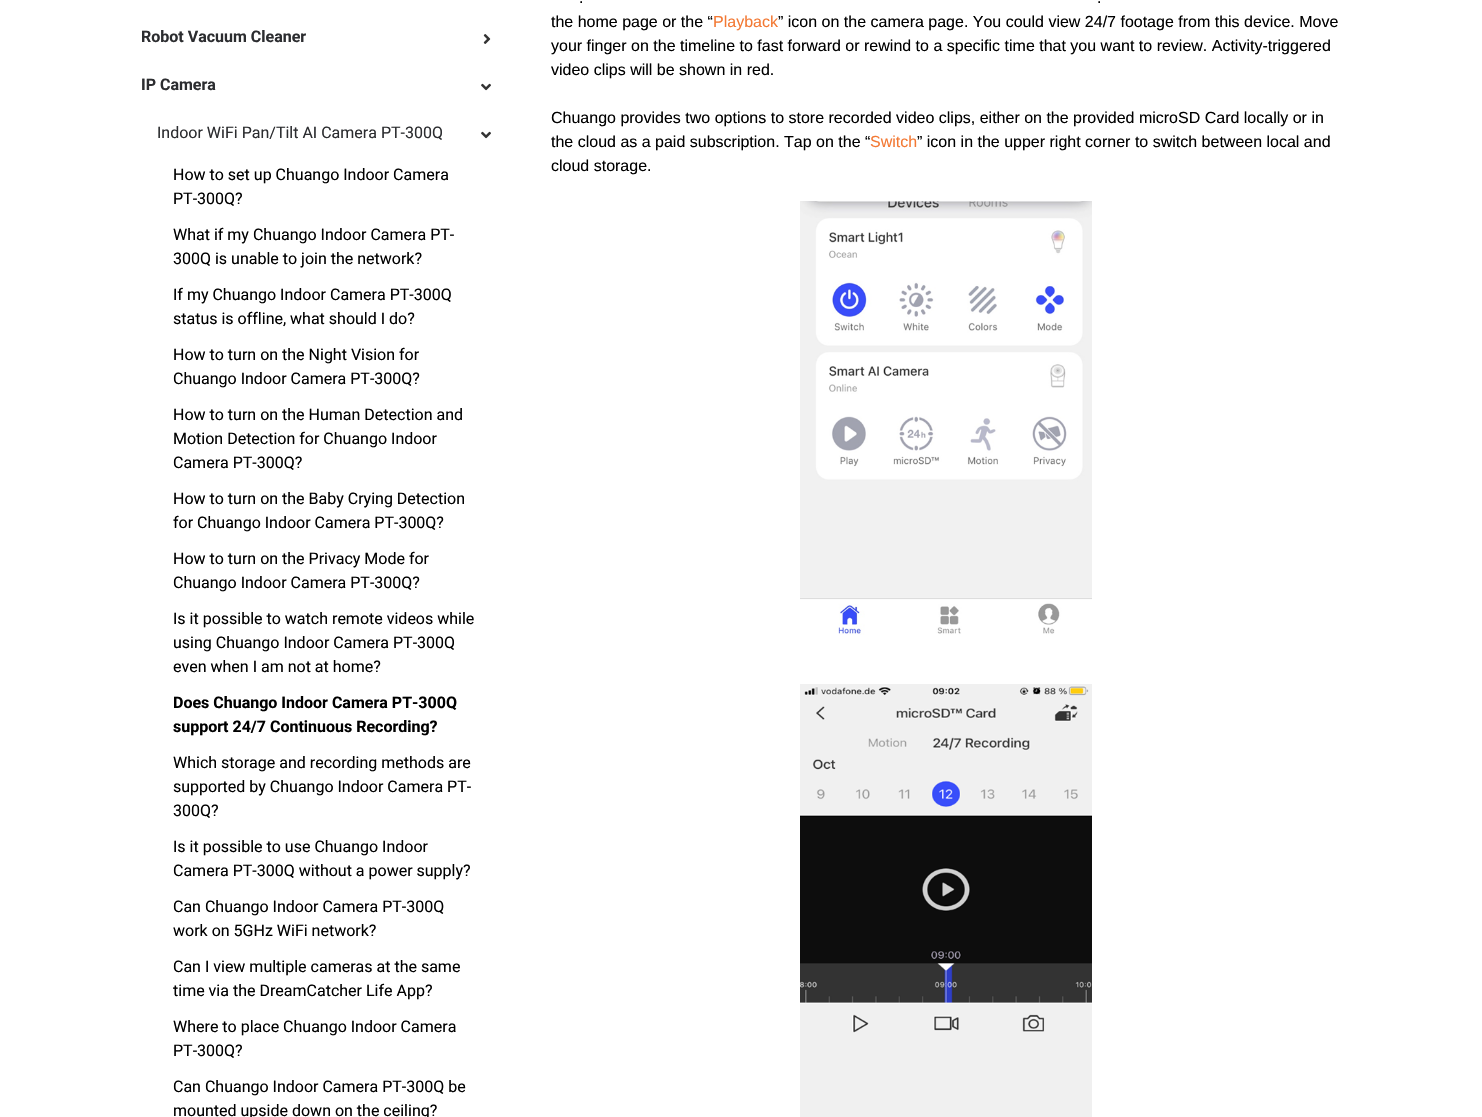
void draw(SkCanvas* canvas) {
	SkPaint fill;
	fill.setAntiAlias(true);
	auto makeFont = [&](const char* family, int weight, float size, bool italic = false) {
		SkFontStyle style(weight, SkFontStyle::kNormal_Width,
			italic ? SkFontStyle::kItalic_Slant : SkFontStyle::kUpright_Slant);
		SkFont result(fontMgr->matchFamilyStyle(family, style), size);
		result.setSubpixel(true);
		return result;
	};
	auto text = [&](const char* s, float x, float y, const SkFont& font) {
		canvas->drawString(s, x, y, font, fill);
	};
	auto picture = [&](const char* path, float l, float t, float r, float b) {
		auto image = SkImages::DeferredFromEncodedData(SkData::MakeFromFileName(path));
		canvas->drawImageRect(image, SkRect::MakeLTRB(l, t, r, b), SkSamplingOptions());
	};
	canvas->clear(0xFFFFFFFF);
	picture("image0.png", 483, 34, 491, 44);
	picture("image1.png", 481, 83, 491, 91);
	picture("image1.png", 481, 131, 491, 139);
	picture("image2.png", 800, 201, 1092, 635);
	picture("image3.png", 800, 684, 1092, 1117);
	auto font1 = makeFont("Roboto", 700, 16);
	fill.setColor(0xFF2C2D30);
	text("Robot Vacuum Cleaner", 141, 42, font1);
	text("IP Camera", 141, 90, font1);
	auto font2 = makeFont("Roboto", 400, 16);
	text("Indoor WiFi Pan/Tilt AI Camera PT-300Q", 157, 138, font2);
	fill.setColor(0xFF000000);
	text("How to set up Chuango Indoor Camera", 173, 180, font2);
	text("PT-300Q?", 173, 204, font2);
	text("What if my Chuango Indoor Camera PT-", 173, 240, font2);
	text("300Q is unable to join the network?", 173, 264, font2);
	text("If my Chuango Indoor Camera PT-300Q", 173, 300, font2);
	text("status is offline, what should I do?", 173, 324, font2);
	text("How to turn on the Night Vision for", 173, 360, font2);
	text("Chuango Indoor Camera PT-300Q?", 173, 384, font2);
	text("How to turn on the Human Detection and", 173, 420, font2);
	text("Motion Detection for Chuango Indoor", 173, 444, font2);
	text("Camera PT-300Q?", 173, 468, font2);
	text("How to turn on the Baby Crying Detection", 173, 504, font2);
	text("for Chuango Indoor Camera PT-300Q?", 173, 528, font2);
	text("How to turn on the Privacy Mode for", 173, 564, font2);
	text("Chuango Indoor Camera PT-300Q?", 173, 588, font2);
	text("Is it possible to watch remote videos while", 173, 624, font2);
	text("using Chuango Indoor Camera PT-300Q", 173, 648, font2);
	text("even when I am not at home?", 173, 672, font2);
	text("Does Chuango Indoor Camera PT-300Q", 173, 708, font1);
	text("support 24/7 Continuous Recording?", 173, 732, font1);
	text("Which storage and recording methods are", 173, 768, font2);
	text("supported by Chuango Indoor Camera PT-", 173, 792, font2);
	text("300Q?", 173, 816, font2);
	text("Is it possible to use Chuango Indoor", 173, 852, font2);
	text("Camera PT-300Q without a power supply?", 173, 876, font2);
	text("Can Chuango Indoor Camera PT-300Q", 173, 912, font2);
	text("work on 5GHz WiFi network?", 173, 936, font2);
	text("Can I view multiple cameras at the same", 173, 972, font2);
	text("time via the DreamCatcher Life App?", 173, 996, font2);
	text("Where to place Chuango Indoor Camera", 173, 1032, font2);
	text("PT-300Q?", 173, 1056, font2);
	text("Can Chuango Indoor Camera PT-300Q be", 173, 1092, font2);
	text("mounted upside down on the ceiling?", 173, 1116, font2);
	auto font3 = makeFont("Liberation Sans", 400, 16);
	text(".", 579, 3, font3);
	text(".", 1097, 3, font3);
	text("the home page or the “", 551, 27, font3);
	fill.setColor(0xFFF37934);
	text("Playback", 713, 27, font3);
	fill.setColor(0xFF000000);
	text("” icon on the camera page. You could view 24/7 footage from this device. Move", 778, 27, font3);
	text("your finger on the timeline to fast forward or rewind to a specific time that you want to review. Activity-triggered", 551, 51, font3);
	text("video clips will be shown in red.", 551, 75, font3);
	text("Chuango provides two options to store recorded video clips, either on the provided microSD Card locally or in", 551, 123, font3);
	text("the cloud as a paid subscription. Tap on the “", 551, 147, font3);
	fill.setColor(0xFFF37934);
	text("Switch", 870, 147, font3);
	fill.setColor(0xFF000000);
	text("” icon in the upper right corner to switch between local and", 917, 147, font3);
	text("cloud storage.", 551, 171, font3);
}
